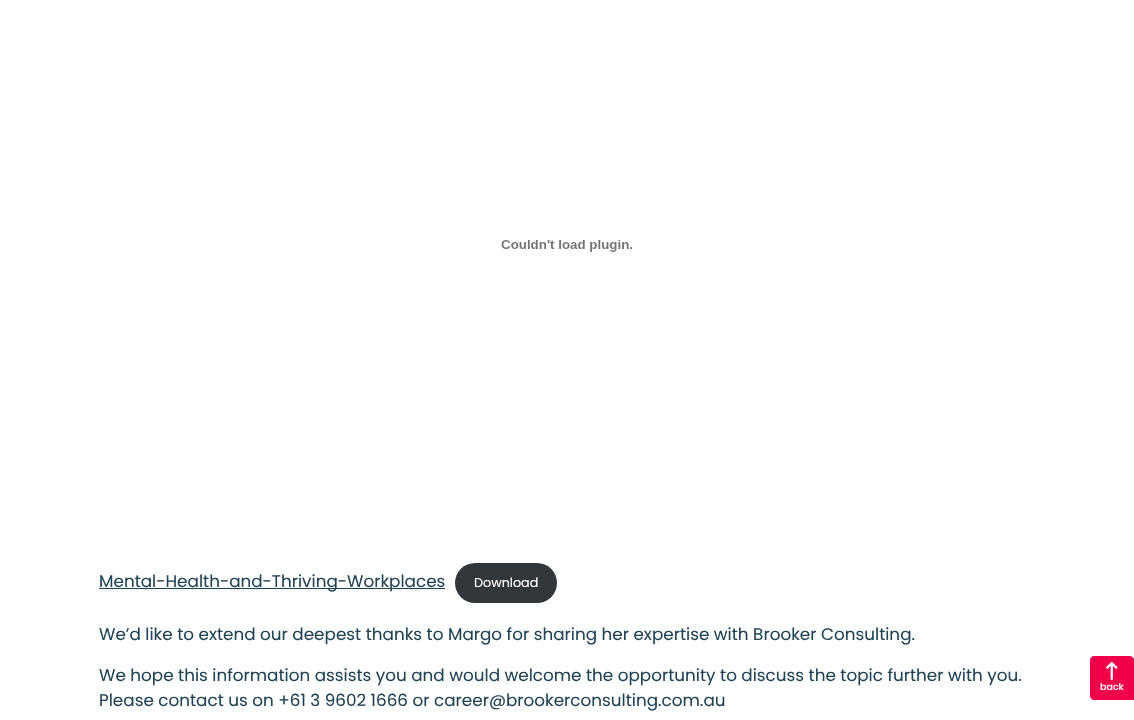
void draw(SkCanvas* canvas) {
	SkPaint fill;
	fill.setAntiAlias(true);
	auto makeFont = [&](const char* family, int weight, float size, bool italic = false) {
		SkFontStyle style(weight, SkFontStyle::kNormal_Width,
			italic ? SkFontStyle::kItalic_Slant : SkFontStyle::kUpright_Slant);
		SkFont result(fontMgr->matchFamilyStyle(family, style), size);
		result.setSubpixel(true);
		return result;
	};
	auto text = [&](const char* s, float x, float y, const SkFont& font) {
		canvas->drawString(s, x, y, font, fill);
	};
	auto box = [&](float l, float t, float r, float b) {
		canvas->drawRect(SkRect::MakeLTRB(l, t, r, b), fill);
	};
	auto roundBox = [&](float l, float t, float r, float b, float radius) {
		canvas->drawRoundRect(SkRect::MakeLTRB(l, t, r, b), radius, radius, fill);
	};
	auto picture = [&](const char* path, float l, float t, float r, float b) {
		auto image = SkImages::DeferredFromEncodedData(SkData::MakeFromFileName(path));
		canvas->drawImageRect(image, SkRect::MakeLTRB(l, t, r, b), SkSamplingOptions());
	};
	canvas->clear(0xFFFFFFFF);
	picture("image0.png", 501, 240, 632, 252);
	fill.setColor(0xFF214356);
	box(99, 588, 445, 589);
	fill.setColor(0xFF32373C);
	roundBox(455, 563, 557, 603, 20);
	fill.setColor(0xFFF3004B);
	canvas->drawPath(SkPathBuilder().moveTo(1094, 656.5f).lineTo(1130, 656.5f).cubicTo(1132, 656.5f, 1133.5f, 658, 1133.5f, 660).lineTo(1133.5f, 699.5f).lineTo(1094, 699.5f).cubicTo(1092, 699.5f, 1090.5f, 698, 1090.5f, 696).lineTo(1090.5f, 660).cubicTo(1090.5f, 658, 1092, 656.5f, 1094, 656.5f).close().detach(), fill);
	fill.setStyle(SkPaint::kStroke_Style);
	fill.setStrokeWidth(1);
	canvas->drawPath(SkPathBuilder().moveTo(1094, 656.5f).lineTo(1130, 656.5f).cubicTo(1132, 656.5f, 1133.5f, 658, 1133.5f, 660).lineTo(1133.5f, 699.5f).lineTo(1094, 699.5f).cubicTo(1092, 699.5f, 1090.5f, 698, 1090.5f, 696).lineTo(1090.5f, 660).cubicTo(1090.5f, 658, 1092, 656.5f, 1094, 656.5f).close().detach(), fill);
	picture("image1.png", 1106, 662, 1118, 680);
	auto font1 = makeFont("Poppins", 400, 16.8f);
	fill.setStyle(SkPaint::kFill_Style);
	fill.setColor(0xFF214356);
	text("Mental-Health-and-Thriving-Workplaces", 99, 587, font1);
	auto font2 = makeFont("Poppins", 400, 12.75f);
	fill.setColor(0xFFFFFFFF);
	text("Download", 474, 587, font2);
	fill.setColor(0xFF214356);
	text("We’d like to extend our deepest thanks to Margo for sharing her expertise with Brooker Consulting.", 99, 640, font1);
	text("We hope this information assists you and would welcome the opportunity to discuss the topic further with you.", 99, 681, font1);
	text("Please contact us on +61 3 9602 1666 or career@brookerconsulting.com.au", 99, 706, font1);
	auto font3 = makeFont("Poppins", 500, 9.5f);
	fill.setColor(0xFFFFFFFF);
	text("back", 1100, 690, font3);
}
